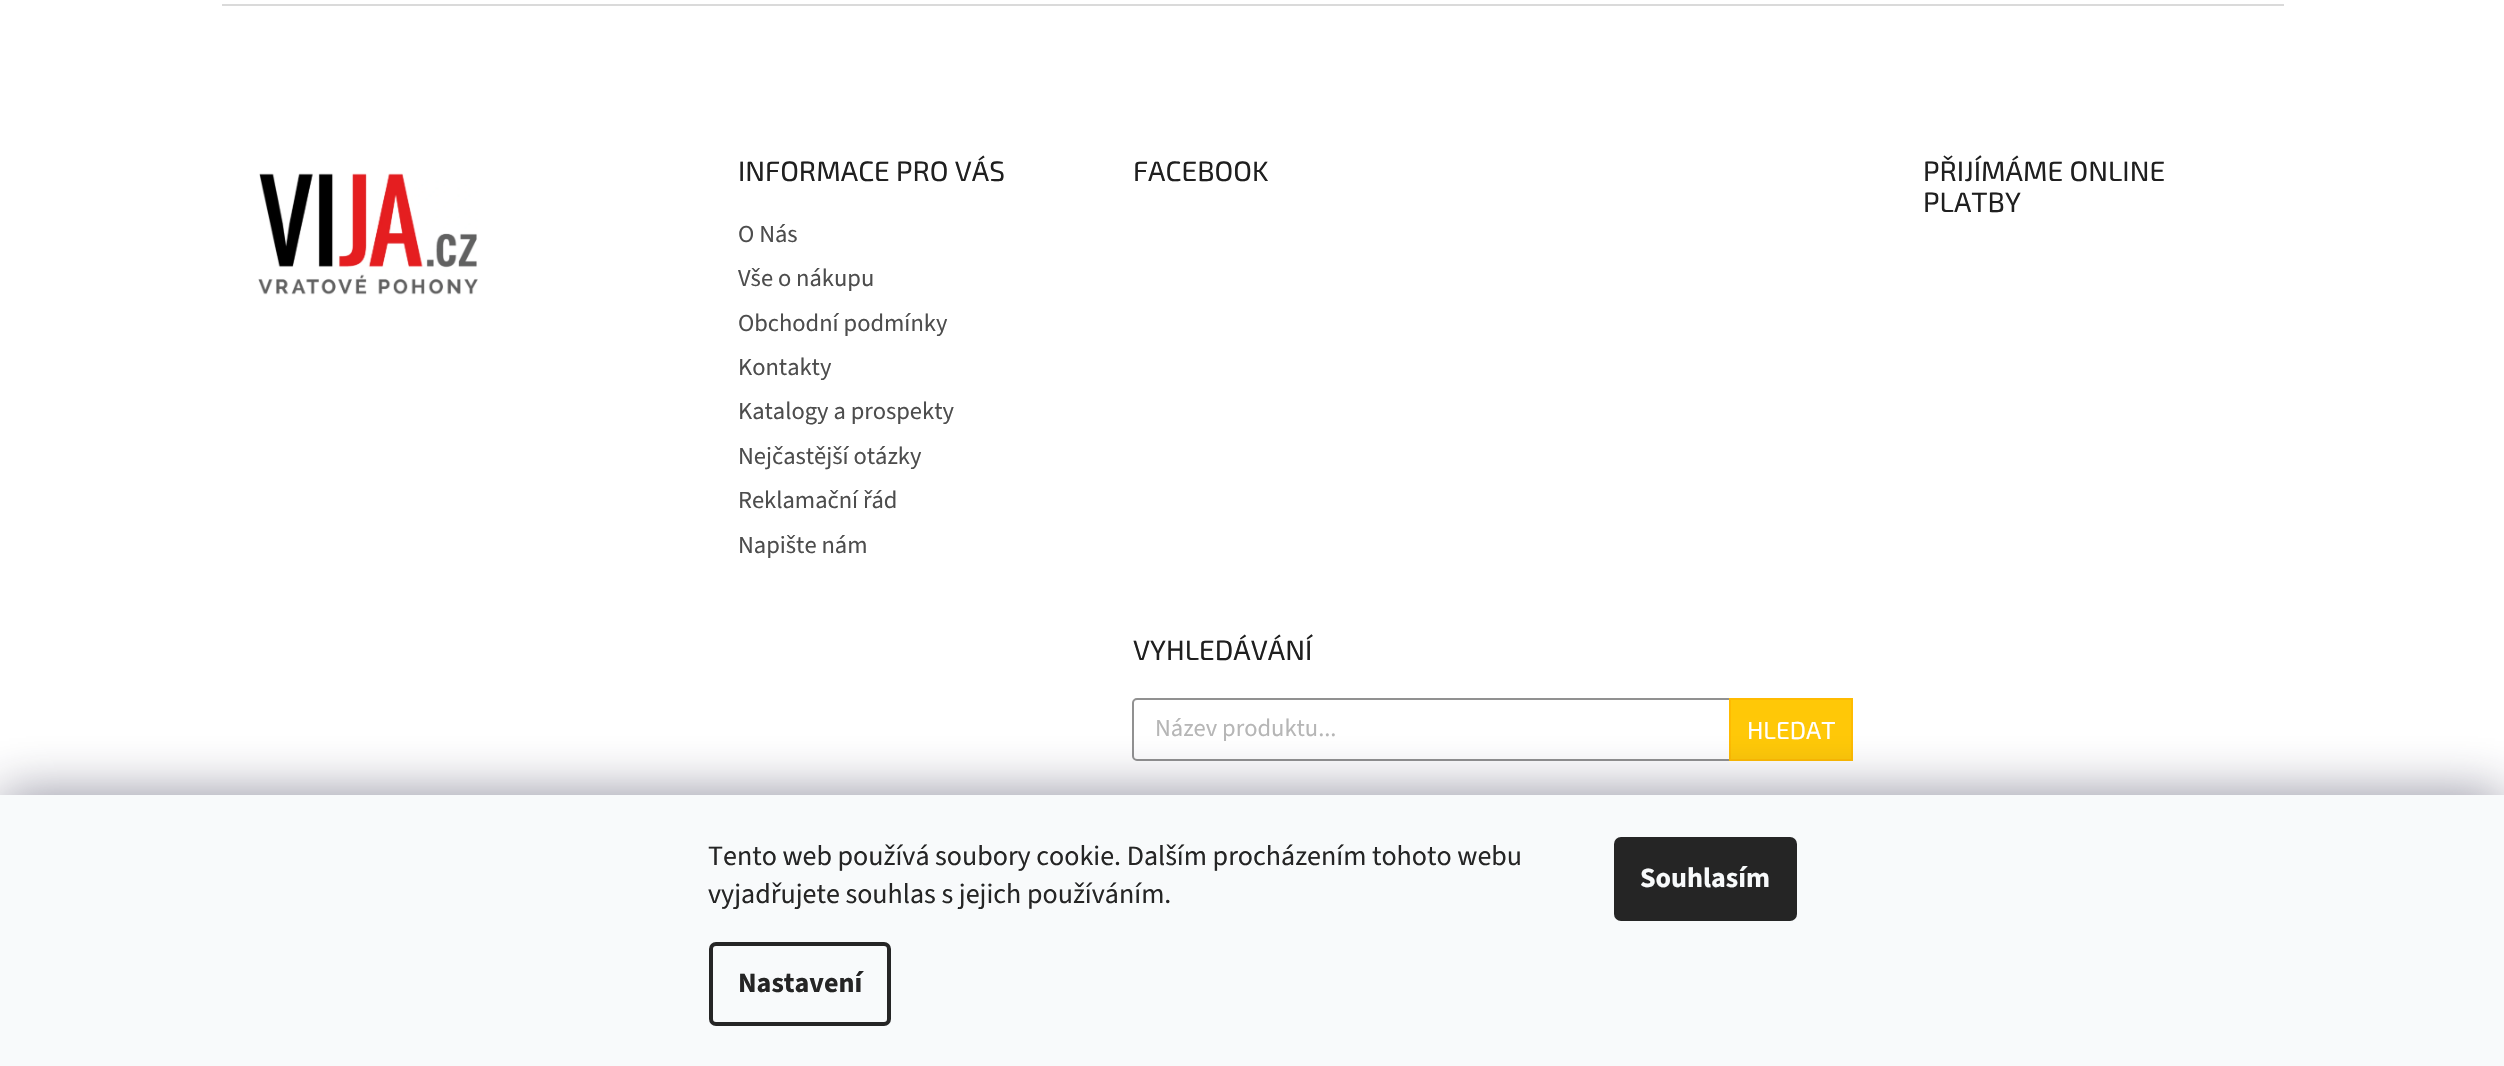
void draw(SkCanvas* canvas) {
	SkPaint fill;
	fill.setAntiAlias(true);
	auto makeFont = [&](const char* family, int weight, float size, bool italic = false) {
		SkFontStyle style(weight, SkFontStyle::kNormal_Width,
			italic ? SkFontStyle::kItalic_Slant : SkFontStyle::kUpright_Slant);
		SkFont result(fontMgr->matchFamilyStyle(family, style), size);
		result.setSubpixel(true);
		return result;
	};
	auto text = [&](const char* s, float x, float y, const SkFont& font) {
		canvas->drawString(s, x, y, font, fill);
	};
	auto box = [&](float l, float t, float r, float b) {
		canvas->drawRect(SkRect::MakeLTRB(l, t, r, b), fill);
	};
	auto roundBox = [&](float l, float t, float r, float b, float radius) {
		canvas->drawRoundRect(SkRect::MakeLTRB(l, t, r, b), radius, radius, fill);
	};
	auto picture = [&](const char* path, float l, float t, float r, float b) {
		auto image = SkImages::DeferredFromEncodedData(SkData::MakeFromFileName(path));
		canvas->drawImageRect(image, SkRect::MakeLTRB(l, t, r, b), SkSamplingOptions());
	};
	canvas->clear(0xFFFFFFFF);
	picture("image0.png", 258, 173, 478, 295);
	fill.setColor(0xFFDADADA);
	box(222, 4, 2284, 6);
	fill.setStyle(SkPaint::kStroke_Style);
	fill.setStrokeWidth(2);
	fill.setColor(0xFF919191);
	canvas->drawRoundRect(SkRect::MakeLTRB(1133, 699, 1852, 760), 4, 4, fill);
	fill.setStyle(SkPaint::kFill_Style);
	fill.setColor(0xFFFFC807);
	canvas->drawRect(SkRect::MakeLTRB(1730, 699, 1852, 760), fill);
	fill.setStyle(SkPaint::kStroke_Style);
	fill.setColor(0xFFFFBB00);
	canvas->drawRect(SkRect::MakeLTRB(1730, 699, 1852, 760), fill);
	fill.setStyle(SkPaint::kFill_Style);
	fill.setColor(0x801B1939);
	fill.setMaskFilter(SkMaskFilter::MakeBlur(kNormal_SkBlurStyle, 26));
	canvas->drawRect(SkRect::MakeLTRB(0, 795, 2504, 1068), fill);
	fill.setMaskFilter(nullptr);
	fill.setColor(0xFFF8FAFB);
	box(0, 795, 2504, 1066);
	fill.setStyle(SkPaint::kStroke_Style);
	fill.setStrokeWidth(4);
	fill.setColor(0xFF252525);
	canvas->drawRoundRect(SkRect::MakeLTRB(711, 944, 889, 1024), 5, 5, fill);
	fill.setStyle(SkPaint::kFill_Style);
	roundBox(1614, 837, 1797, 921, 7);
	auto font1 = makeFont("Exo 2", 400, 28);
	fill.setColor(0xFF1F1F1F);
	text("INFORMACE PRO VÁS", 738, 181, font1);
	auto font2 = makeFont("Source Sans 3", 400, 24.5f);
	fill.setColor(0xFF4D4D4D);
	text("O Nás", 738, 242, font2);
	text("Vše o nákupu", 738, 286, font2);
	text("Obchodní podmínky", 738, 331, font2);
	text("Kontakty", 738, 375, font2);
	text("Katalogy a prospekty", 738, 419, font2);
	text("Nejčastější otázky", 738, 464, font2);
	text("Reklamační řád", 738, 508, font2);
	text("Napište nám", 738, 553, font2);
	fill.setColor(0xFF1F1F1F);
	text("FACEBOOK", 1133, 181, font1);
	text("PŘIJÍMÁME ONLINE", 1923, 181, font1);
	text("PLATBY", 1923, 212, font1);
	text("VYHLEDÁVÁNÍ", 1133, 660, font1);
	fill.setColor(0xFFB6B6B6);
	text("Název produktu...", 1155, 736, font2);
	auto font3 = makeFont("Exo 2", 400, 24.5f);
	fill.setColor(0xFFFFFFFF);
	text("HLEDAT", 1747, 739, font3);
	auto font4 = makeFont("Source Sans 3", 400, 28);
	fill.setColor(0xFF252525);
	text("Tento web používá soubory cookie. Dalším procházením tohoto webu", 708, 865, font4);
	text("vyjadřujete souhlas s jejich používáním.", 708, 903, font4);
	auto font5 = makeFont("Source Sans 3", 700, 28);
	text("Nastavení", 738, 992, font5);
	fill.setColor(0xFFF8FAFB);
	text("Souhlasím", 1640, 887, font5);
}
